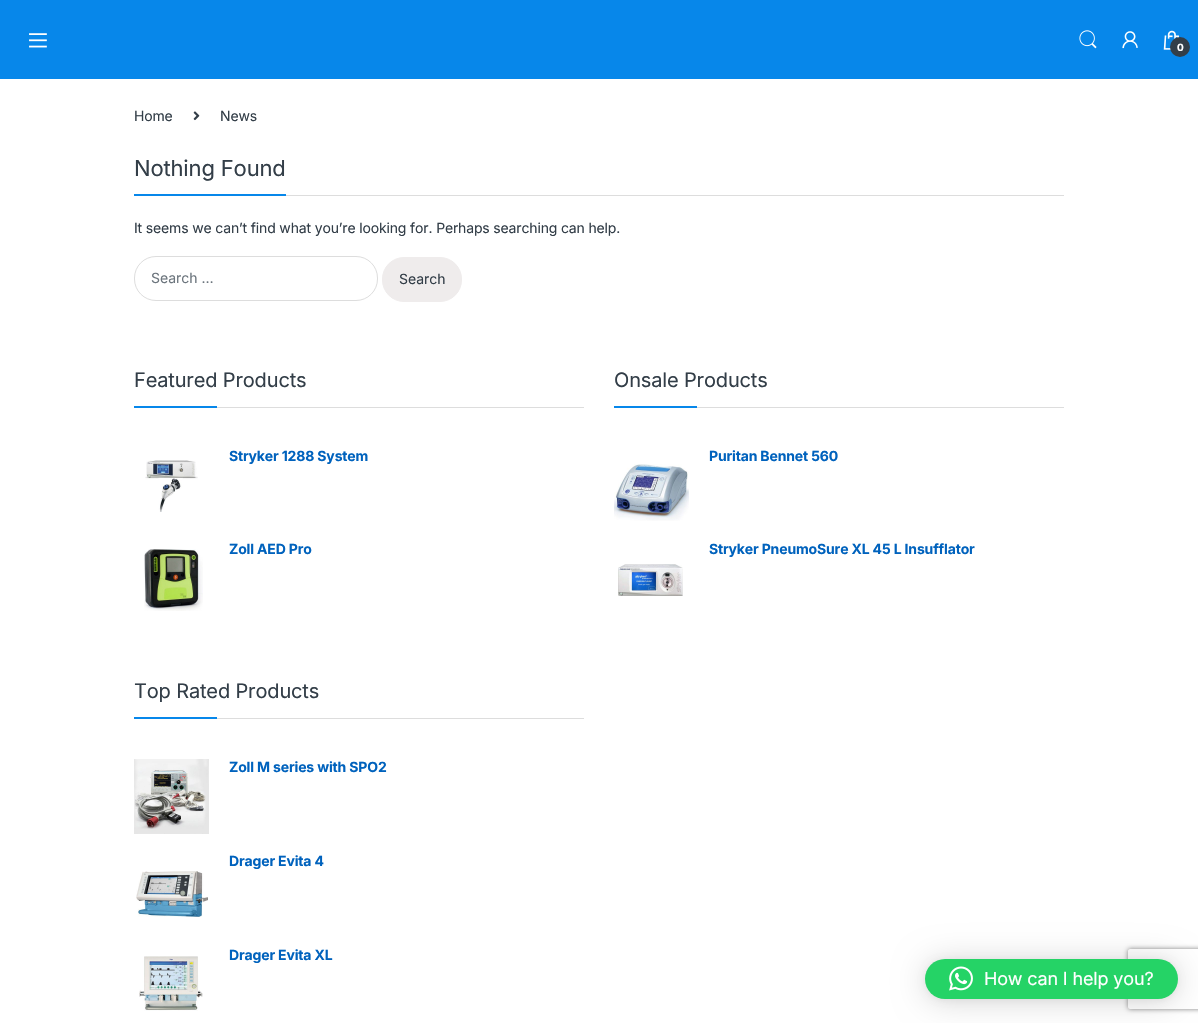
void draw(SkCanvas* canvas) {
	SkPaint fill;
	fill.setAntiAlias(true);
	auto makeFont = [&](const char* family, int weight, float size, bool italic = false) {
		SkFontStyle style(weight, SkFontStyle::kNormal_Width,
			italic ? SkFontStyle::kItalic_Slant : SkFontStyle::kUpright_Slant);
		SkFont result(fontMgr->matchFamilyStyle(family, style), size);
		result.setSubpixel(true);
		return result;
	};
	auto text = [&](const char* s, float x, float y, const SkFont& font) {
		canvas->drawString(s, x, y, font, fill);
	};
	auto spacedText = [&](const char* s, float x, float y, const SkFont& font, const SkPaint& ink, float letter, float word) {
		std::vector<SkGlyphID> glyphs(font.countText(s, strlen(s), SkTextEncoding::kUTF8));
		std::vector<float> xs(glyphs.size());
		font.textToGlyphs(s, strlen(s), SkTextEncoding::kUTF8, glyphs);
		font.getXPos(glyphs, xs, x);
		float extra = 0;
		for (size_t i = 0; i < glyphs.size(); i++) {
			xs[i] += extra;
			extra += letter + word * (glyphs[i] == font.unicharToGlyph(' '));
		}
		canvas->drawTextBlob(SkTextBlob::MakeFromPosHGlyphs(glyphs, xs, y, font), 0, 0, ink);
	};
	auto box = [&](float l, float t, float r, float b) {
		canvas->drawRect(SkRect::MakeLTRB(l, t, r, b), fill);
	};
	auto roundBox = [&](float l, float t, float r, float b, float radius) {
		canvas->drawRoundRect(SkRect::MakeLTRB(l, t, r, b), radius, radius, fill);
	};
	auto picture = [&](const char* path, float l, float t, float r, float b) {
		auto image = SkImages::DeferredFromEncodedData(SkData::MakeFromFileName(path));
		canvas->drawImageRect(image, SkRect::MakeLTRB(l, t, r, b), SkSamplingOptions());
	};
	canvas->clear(0xFFFFFFFF);
	fill.setColor(0xFF0787EA);
	box(0, 0, 1198, 79);
	picture("image0.png", 29, 33, 47, 48);
	picture("image1.png", 1079, 30, 1097, 49);
	picture("image2.png", 1122, 31, 1138, 49);
	picture("image3.png", 1163, 30, 1180, 50);
	fill.setColor(0xFF333E48);
	canvas->drawCircle(1180, 47, 10, fill);
	picture("image4.png", 193, 111, 200, 121);
	fill.setColor(0xFFDDDDDD);
	box(286, 195, 1064, 196);
	fill.setColor(0xFF0787EA);
	box(134, 194, 286, 196);
	fill.setStyle(SkPaint::kStroke_Style);
	fill.setStrokeWidth(1);
	fill.setColor(0xFFDDDDDD);
	canvas->drawRoundRect(SkRect::MakeLTRB(134.5f, 256.5f, 377.5f, 300.5f), 21.5f, 21.5f, fill);
	fill.setStyle(SkPaint::kFill_Style);
	fill.setColor(0xFFEFECEC);
	canvas->drawRoundRect(SkRect::MakeLTRB(382.5f, 257.5f, 461.5f, 301.5f), 21.5f, 21.5f, fill);
	fill.setStyle(SkPaint::kStroke_Style);
	canvas->drawRoundRect(SkRect::MakeLTRB(382.5f, 257.5f, 461.5f, 301.5f), 21.5f, 21.5f, fill);
	fill.setStyle(SkPaint::kFill_Style);
	fill.setColor(0xFFDDDDDD);
	box(217, 407, 584, 408);
	fill.setColor(0xFF0787EA);
	box(134, 406, 217, 408);
	picture("image5.png", 145, 460, 198, 512);
	picture("image6.png", 144, 549, 203, 611);
	fill.setColor(0xFFDDDDDD);
	box(697, 407, 1064, 408);
	fill.setColor(0xFF0787EA);
	box(614, 406, 697, 408);
	picture("image7.png", 614, 464, 689, 521);
	picture("image8.png", 618, 564, 683, 596);
	fill.setColor(0xFFDDDDDD);
	box(217, 718, 584, 719);
	fill.setColor(0xFF0787EA);
	box(134, 717, 217, 719);
	picture("image9.png", 134, 759, 209, 834);
	picture("image10.png", 136, 871, 208, 917);
	picture("image11.png", 139, 956, 203, 1011);
	fill.setColor(0x29000000);
	fill.setMaskFilter(SkMaskFilter::MakeBlur(kNormal_SkBlurStyle, 16));
	canvas->drawRoundRect(SkRect::MakeLTRB(925, 961, 1178, 1001), 20, 20, fill);
	fill.setMaskFilter(nullptr);
	fill.setColor(0x0F000000);
	fill.setMaskFilter(SkMaskFilter::MakeBlur(kNormal_SkBlurStyle, 3));
	canvas->drawRoundRect(SkRect::MakeLTRB(925, 960, 1178, 1000), 20, 20, fill);
	fill.setMaskFilter(nullptr);
	canvas->save();
	canvas->clipPath(SkPathBuilder(SkPathFillType::kEvenOdd).moveTo(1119, 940).lineTo(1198, 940).lineTo(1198, 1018).lineTo(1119, 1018).close().moveTo(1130, 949).lineTo(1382, 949).cubicTo(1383, 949, 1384, 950, 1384, 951).lineTo(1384, 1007).cubicTo(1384, 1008, 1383, 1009, 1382, 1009).lineTo(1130, 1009).cubicTo(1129, 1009, 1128, 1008, 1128, 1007).lineTo(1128, 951).cubicTo(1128, 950, 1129, 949, 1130, 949).close().detach(), true);
	fill.setColor(0xFF808080);
	fill.setMaskFilter(SkMaskFilter::MakeBlur(kNormal_SkBlurStyle, 2.5f));
	canvas->drawRoundRect(SkRect::MakeLTRB(1128, 949, 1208, 1009), 2, 2, fill);
	fill.setMaskFilter(nullptr);
	canvas->restore();
	fill.setColor(0xFF25D366);
	roundBox(925, 959, 1178, 999, 20);
	picture("image12.png", 949, 966, 973, 991);
	auto font1 = makeFont("Inter", 700, 10);
	fill.setColor(0xFFFFFFFF);
	spacedText("0", 1177, 51, font1, fill, -0.15f, 0);
	auto font2 = makeFont("Inter", 400, 14);
	fill.setColor(0xFF333E48);
	spacedText("Home", 134, 121, font2, fill, -0.15f, 0);
	spacedText("News", 220, 121, font2, fill, -0.15f, 0);
	auto font3 = makeFont("Inter", 400, 22);
	spacedText("Nothing Found", 134, 176, font3, fill, -0.15f, 0);
	spacedText("It seems we can’t find what you’re looking for. Perhaps searching can help.", 134, 233, font2, fill, -0.15f, 0);
	fill.setColor(0xFF6C757D);
	text("Search …", 151, 283, font2);
	fill.setColor(0xFF333E48);
	text("Search", 399, 284, font2);
	auto font4 = makeFont("Inter", 400, 20);
	spacedText("Featured Products", 134, 387, font4, fill, -0.15f, 0);
	auto font5 = makeFont("Inter", 700, 14);
	fill.setColor(0xFF0062BD);
	spacedText("Stryker 1288 System", 229, 461, font5, fill, -0.15f, 0);
	spacedText("Zoll AED Pro", 229, 554, font5, fill, -0.15f, 0);
	fill.setColor(0xFF333E48);
	spacedText("Onsale Products", 614, 387, font4, fill, -0.15f, 0);
	fill.setColor(0xFF0062BD);
	spacedText("Puritan Bennet 560", 709, 461, font5, fill, -0.15f, 0);
	spacedText("Stryker PneumoSure XL 45 L Insufflator", 709, 554, font5, fill, -0.15f, 0);
	fill.setColor(0xFF333E48);
	spacedText("Top Rated Products", 134, 698, font4, fill, -0.15f, 0);
	fill.setColor(0xFF0062BD);
	spacedText("Zoll M series with SPO2", 229, 772, font5, fill, -0.15f, 0);
	spacedText("Drager Evita 4", 229, 866, font5, fill, -0.15f, 0);
	spacedText("Drager Evita XL", 229, 960, font5, fill, -0.15f, 0);
	auto font6 = makeFont("Inter", 400, 18);
	fill.setColor(0xFFFFFFFF);
	spacedText("How can I help you?", 984, 985, font6, fill, -0.15f, 0);
}
